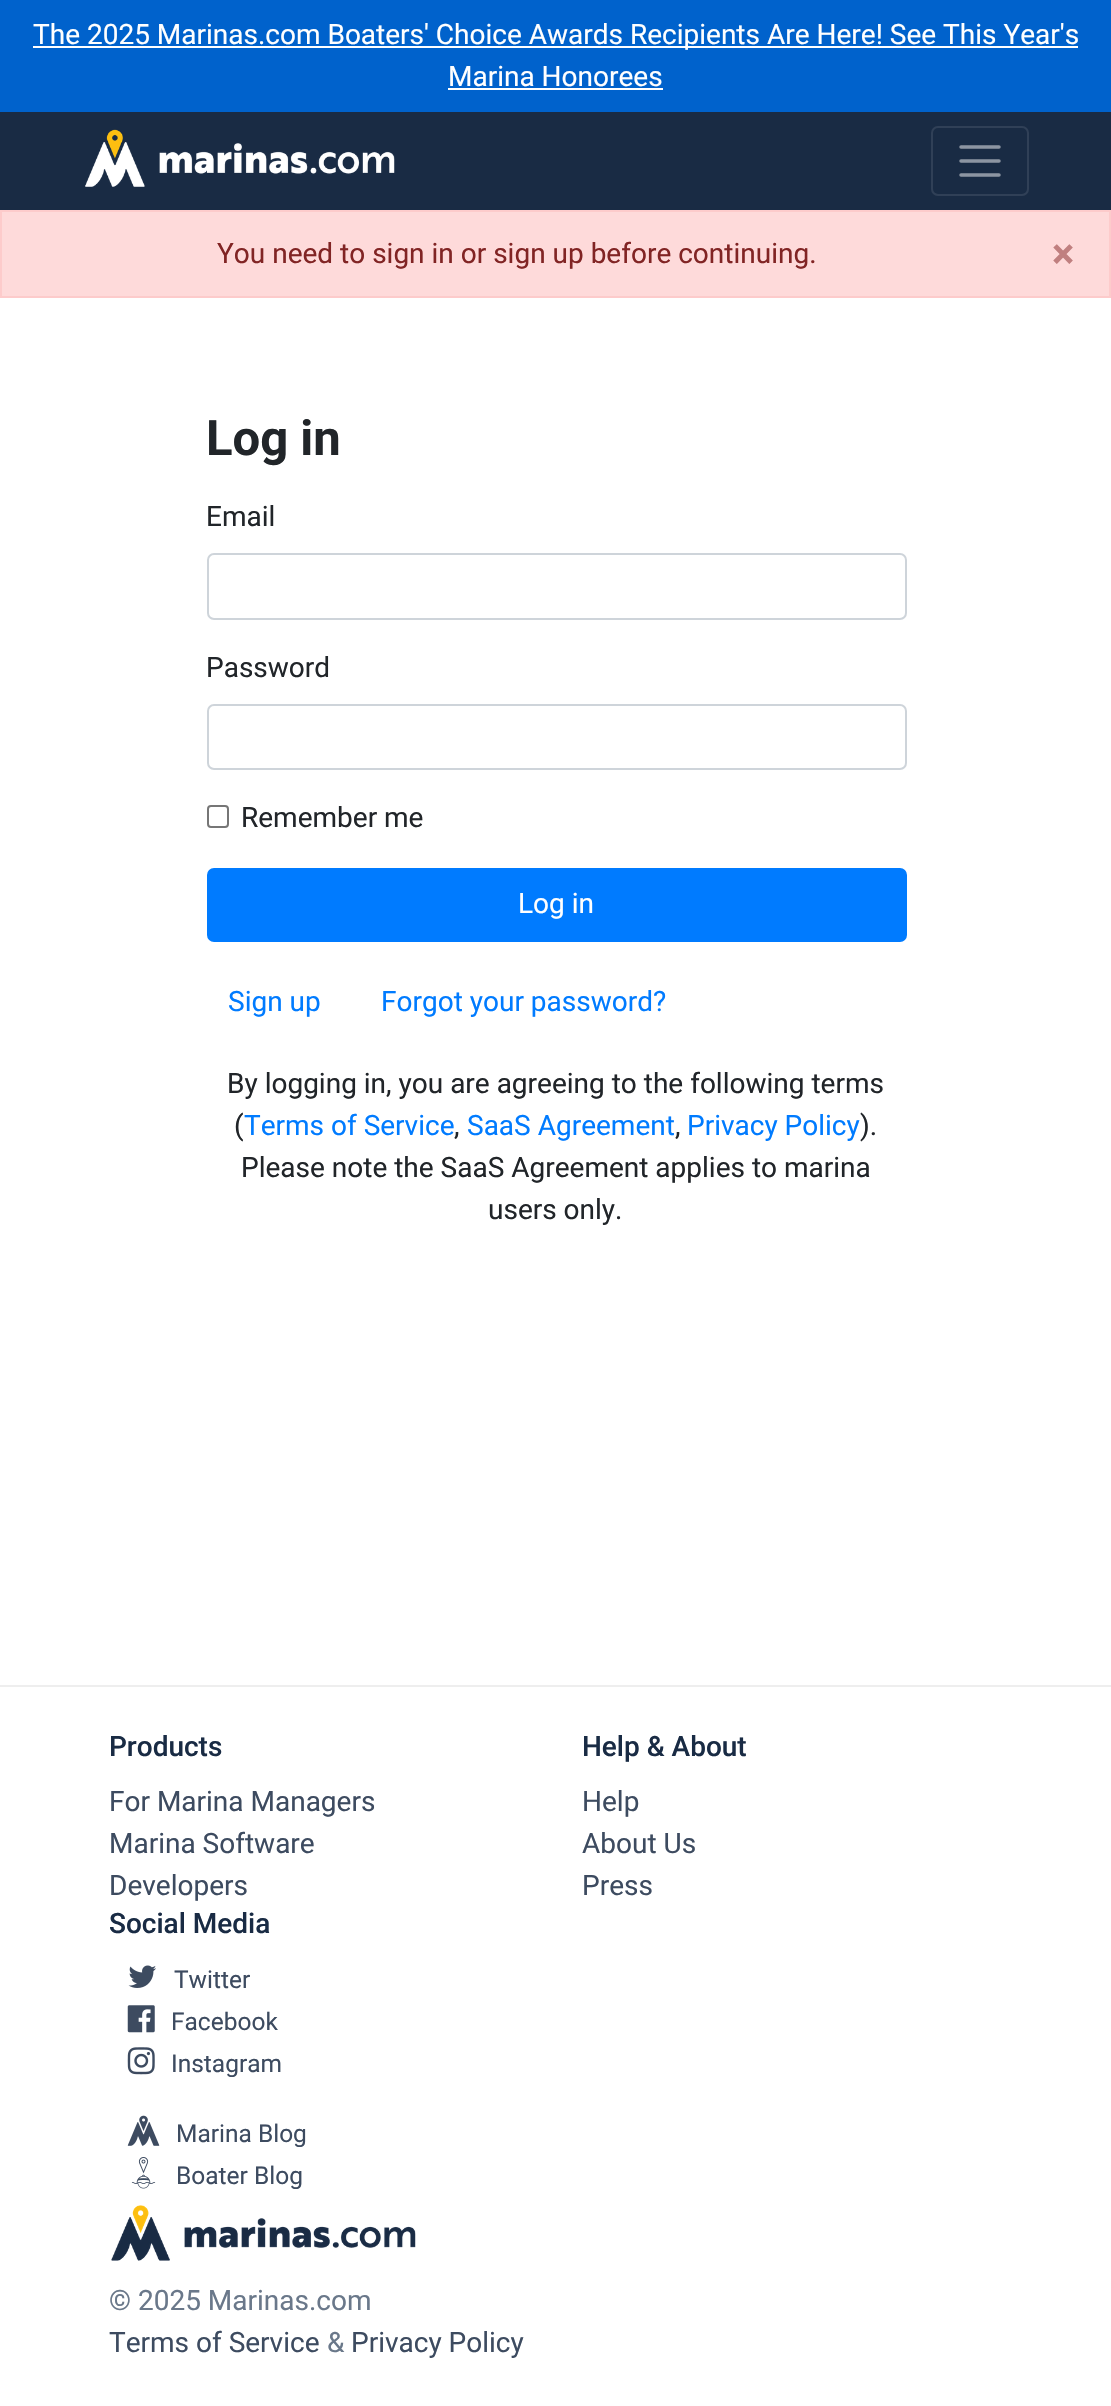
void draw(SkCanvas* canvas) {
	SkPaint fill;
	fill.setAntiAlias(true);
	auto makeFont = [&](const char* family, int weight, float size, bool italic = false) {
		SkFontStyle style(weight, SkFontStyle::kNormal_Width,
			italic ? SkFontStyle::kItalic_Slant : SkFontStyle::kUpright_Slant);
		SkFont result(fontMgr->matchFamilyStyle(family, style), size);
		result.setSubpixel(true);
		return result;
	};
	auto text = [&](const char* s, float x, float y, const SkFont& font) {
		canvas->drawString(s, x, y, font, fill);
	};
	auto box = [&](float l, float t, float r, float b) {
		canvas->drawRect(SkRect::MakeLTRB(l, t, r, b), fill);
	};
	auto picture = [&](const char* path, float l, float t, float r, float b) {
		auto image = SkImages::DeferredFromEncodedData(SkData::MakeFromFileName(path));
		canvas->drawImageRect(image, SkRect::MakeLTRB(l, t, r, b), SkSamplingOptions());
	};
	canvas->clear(0xFFFFFFFF);
	fill.setColor(0xFF0062CC);
	box(0, 0, 1111, 112);
	fill.setColor(0xFFFFFFFF);
	box(33, 46, 1078, 48);
	box(448, 88, 663, 90);
	fill.setColor(0xFF192B44);
	box(0, 112, 1111, 210);
	picture("image0.png", 85, 129, 395, 187);
	fill.setStyle(SkPaint::kStroke_Style);
	fill.setStrokeWidth(2);
	fill.setColor(0xFF304057);
	canvas->drawRoundRect(SkRect::MakeLTRB(932, 127, 1028, 195), 6, 6, fill);
	fill.setStrokeWidth(3.5f);
	fill.setStrokeCap(SkPaint::kRound_Cap);
	fill.setColor(0xFF8C95A2);
	canvas->drawPath(SkPathBuilder().moveTo(961, 147).lineTo(999, 147).moveTo(961, 161).lineTo(999, 161).moveTo(961, 175).lineTo(999, 175).detach(), fill);
	fill.setStyle(SkPaint::kFill_Style);
	fill.setColor(0xFFFEDADA);
	canvas->drawRect(SkRect::MakeLTRB(1, 211, 1110, 297), fill);
	fill.setStyle(SkPaint::kStroke_Style);
	fill.setStrokeWidth(2);
	fill.setStrokeCap(SkPaint::kButt_Cap);
	fill.setColor(0xFFFDCBCB);
	canvas->drawRect(SkRect::MakeLTRB(1, 211, 1110, 297), fill);
	fill.setColor(0xFFCED4DA);
	canvas->drawRoundRect(SkRect::MakeLTRB(208, 554, 906, 619), 6, 6, fill);
	canvas->drawRoundRect(SkRect::MakeLTRB(208, 705, 906, 769), 6, 6, fill);
	fill.setColor(0xFF767676);
	canvas->drawRoundRect(SkRect::MakeLTRB(208, 806, 228, 827), 3, 3, fill);
	fill.setStyle(SkPaint::kFill_Style);
	fill.setColor(0xFF007BFF);
	canvas->drawRoundRect(SkRect::MakeLTRB(208, 869, 906, 941), 6, 6, fill);
	fill.setStyle(SkPaint::kStroke_Style);
	canvas->drawRoundRect(SkRect::MakeLTRB(208, 869, 906, 941), 6, 6, fill);
	fill.setStyle(SkPaint::kFill_Style);
	fill.setColor(0xFFEEEEEE);
	box(0, 1685, 1111, 1687);
	picture("image1.png", 128, 1965, 156, 1988);
	picture("image2.png", 127, 2005, 155, 2033);
	picture("image3.png", 127, 2047, 155, 2075);
	picture("image4.png", 127, 2115, 160, 2146);
	picture("image5.png", 131, 2157, 156, 2189);
	picture("image6.png", 111, 2205, 416, 2261);
	auto font1 = makeFont("Roboto", 400, 28);
	fill.setColor(0xFFFFFFFF);
	text("The 2025 Marinas.com Boaters' Choice Awards Recipients Are Here! See This Year's", 33, 44, font1);
	text("Marina Honorees", 448, 86, font1);
	fill.setColor(0xFF812424);
	text("You need to sign in or sign up before continuing.", 217, 263, font1);
	auto font2 = makeFont("Roboto", 700, 42);
	fill.setColor(0xFFC07F7F);
	text("×", 1052, 268, font2);
	auto font3 = makeFont("Roboto", 700, 49);
	fill.setColor(0xFF212529);
	text("Log in", 206, 455, font3);
	text("Email", 206, 526, font1);
	text("Password", 206, 677, font1);
	text("Remember me", 241, 827, font1);
	fill.setColor(0xFFFFFFFF);
	text("Log in", 518, 913, font1);
	fill.setColor(0xFF007BFF);
	text("Sign up", 228, 1011, font1);
	text("Forgot your password?", 381, 1011, font1);
	fill.setColor(0xFF212529);
	text("By logging in, you are agreeing to the following terms", 227, 1093, font1);
	text("(", 234, 1135, font1);
	fill.setColor(0xFF007BFF);
	text("Terms of Service", 244, 1135, font1);
	fill.setColor(0xFF212529);
	text(",", 454, 1135, font1);
	fill.setColor(0xFF007BFF);
	text("SaaS Agreement", 467, 1135, font1);
	fill.setColor(0xFF212529);
	text(",", 675, 1135, font1);
	fill.setColor(0xFF007BFF);
	text("Privacy Policy", 687, 1135, font1);
	fill.setColor(0xFF212529);
	text(").", 860, 1135, font1);
	text("Please note the SaaS Agreement applies to marina", 241, 1177, font1);
	text("users only.", 488, 1219, font1);
	auto font4 = makeFont("Roboto", 500, 28);
	fill.setColor(0xFF192B44);
	text("Products", 109, 1756, font4);
	fill.setColor(0xFF3D4B60);
	text("For Marina Managers", 109, 1811, font1);
	text("Marina Software", 109, 1853, font1);
	text("Developers", 109, 1895, font1);
	fill.setColor(0xFF192B44);
	text("Help & About", 582, 1756, font4);
	fill.setColor(0xFF3D4B60);
	text("Help", 582, 1811, font1);
	text("About Us", 582, 1853, font1);
	text("Press", 582, 1895, font1);
	fill.setColor(0xFF192B44);
	text("Social Media", 109, 1933, font4);
	auto font5 = makeFont("Roboto", 400, 24.5f);
	fill.setColor(0xFF3D4B60);
	text("Twitter", 174, 1988, font5);
	text("Facebook", 171, 2030, font5);
	text("Instagram", 171, 2072, font5);
	text("Marina Blog", 176, 2142, font5);
	text("Boater Blog", 176, 2184, font5);
	fill.setColor(0xFF6A788A);
	text("© 2025 Marinas.com", 109, 2310, font1);
	fill.setColor(0xFF3D4B60);
	text("Terms of Service", 109, 2352, font1);
	fill.setColor(0xFF6A788A);
	text("&", 327, 2352, font1);
	fill.setColor(0xFF3D4B60);
	text("Privacy Policy", 351, 2352, font1);
}
